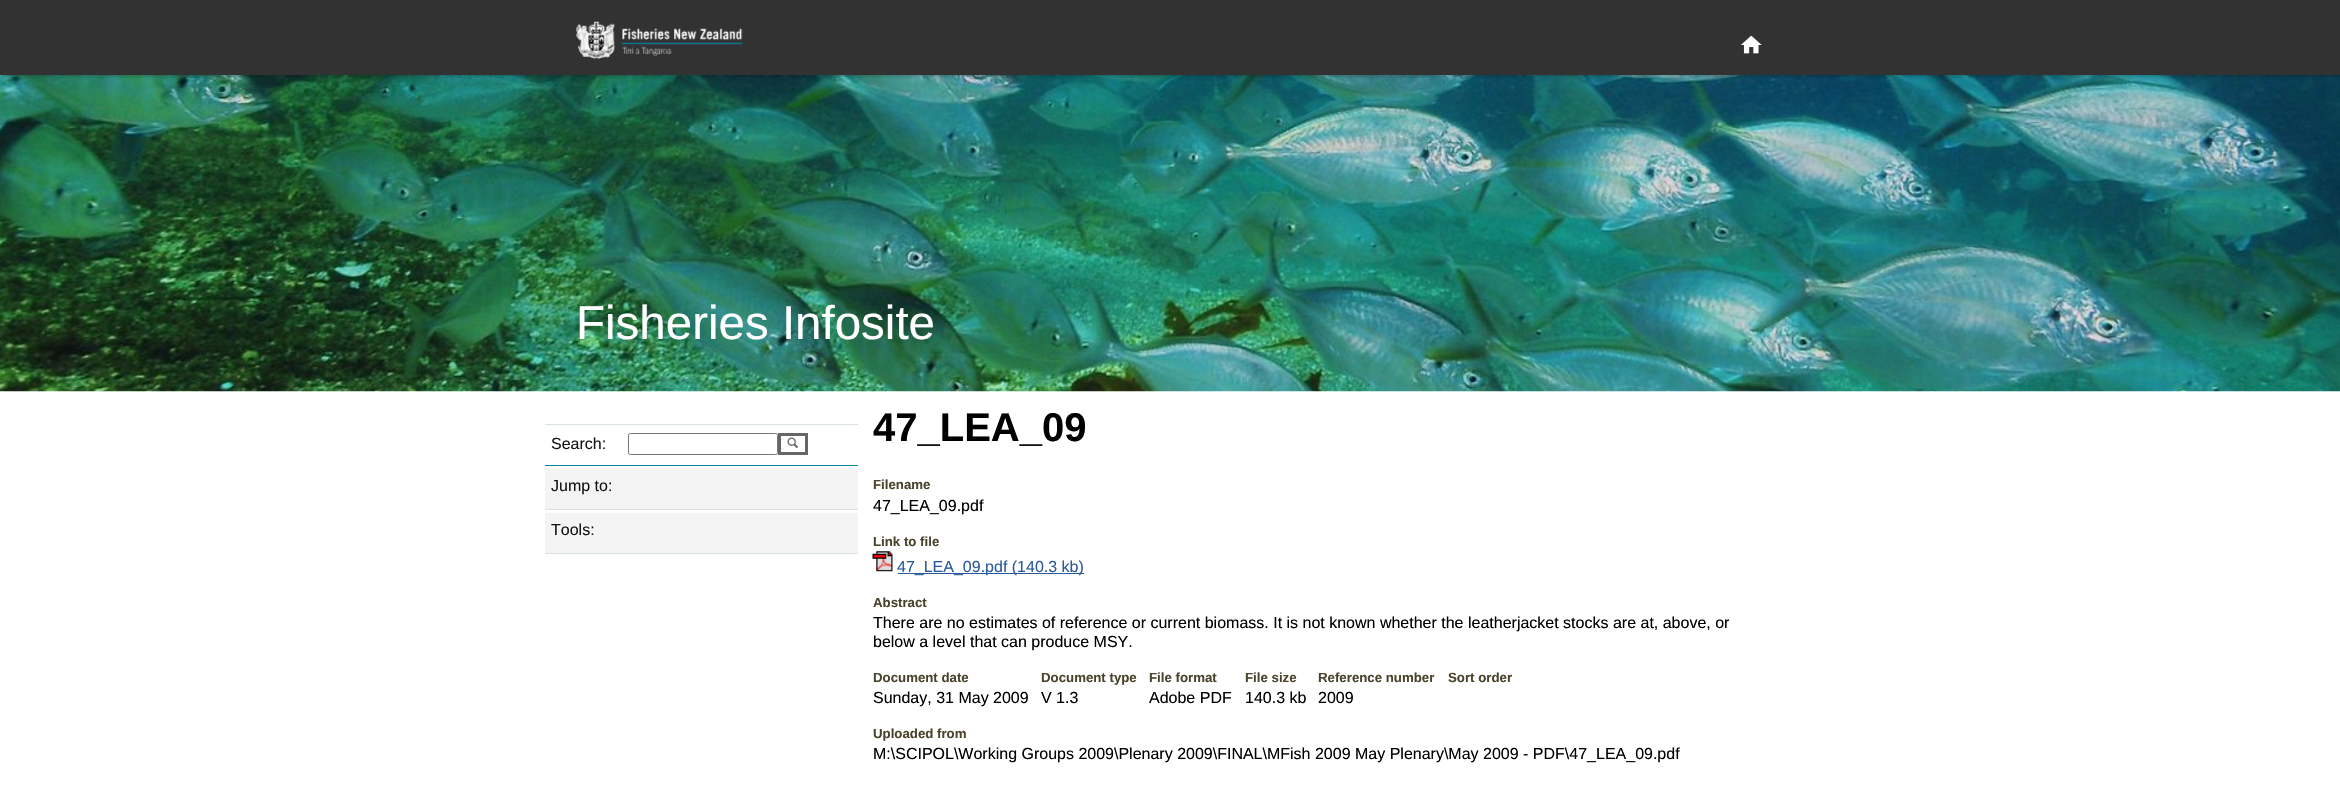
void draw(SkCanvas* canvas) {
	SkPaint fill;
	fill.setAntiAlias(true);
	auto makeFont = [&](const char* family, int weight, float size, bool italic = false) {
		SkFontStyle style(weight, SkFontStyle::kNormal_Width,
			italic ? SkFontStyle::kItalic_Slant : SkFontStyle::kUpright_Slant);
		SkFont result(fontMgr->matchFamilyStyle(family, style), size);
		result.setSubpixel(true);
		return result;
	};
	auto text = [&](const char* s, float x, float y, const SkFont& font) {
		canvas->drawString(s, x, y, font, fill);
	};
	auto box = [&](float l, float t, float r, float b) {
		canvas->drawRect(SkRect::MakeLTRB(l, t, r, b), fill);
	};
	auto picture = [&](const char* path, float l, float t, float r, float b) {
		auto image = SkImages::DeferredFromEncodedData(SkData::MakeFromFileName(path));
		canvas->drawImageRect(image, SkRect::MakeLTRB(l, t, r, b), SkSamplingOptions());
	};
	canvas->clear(0xFFFFFFFF);
	picture("image2.png", 0, 75, 2340, 392);
	fill.setColor(0x66000000);
	fill.setMaskFilter(SkMaskFilter::MakeBlur(kNormal_SkBlurStyle, 2.5f));
	canvas->drawRect(SkRect::MakeLTRB(0, 0, 2340, 75), fill);
	fill.setMaskFilter(nullptr);
	fill.setColor(0xFF323232);
	box(0, 0, 2340, 75);
	picture("image0.png", 576, 21, 744, 59);
	picture("image1.png", 1741, 35, 1762, 54);
	fill.setColor(0xFFD7E2E7);
	box(545, 424, 858, 425);
	fill.setColor(0xFF0085A0);
	box(545, 465, 858, 466);
	fill.setStyle(SkPaint::kStroke_Style);
	fill.setStrokeWidth(1);
	fill.setColor(0xFF767676);
	canvas->drawRoundRect(SkRect::MakeLTRB(628.5f, 433.5f, 777.5f, 454.5f), 2, 2, fill);
	fill.setStrokeWidth(3);
	fill.setColor(0xFF666666);
	canvas->drawRect(SkRect::MakeLTRB(779.5f, 434.5f, 806.5f, 453.5f), fill);
	picture("image3.png", 787, 437, 798, 448);
	fill.setStyle(SkPaint::kFill_Style);
	fill.setColor(0xFFF4F4F4);
	box(545, 469, 858, 509);
	fill.setColor(0xFFD7E2E7);
	box(545, 509, 858, 510);
	fill.setColor(0xFFF4F4F4);
	box(545, 513, 858, 553);
	fill.setColor(0xFFD7E2E7);
	box(545, 553, 858, 554);
	picture("image4.png", 872, 551, 893, 572);
	fill.setColor(0xFF285A9B);
	box(898, 573, 1084, 574);
	auto font1 = makeFont("Liberation Sans", 400, 47.5f);
	fill.setColor(0xFFFFFFFF);
	text("Fisheries Infosite", 576, 339, font1);
	auto font2 = makeFont("Liberation Sans", 400, 16);
	fill.setColor(0xFF151515);
	text("Search:", 551, 449, font2);
	text("Jump to:", 551, 491, font2);
	text("Tools:", 551, 535, font2);
	auto font3 = makeFont("Liberation Sans", 700, 40);
	fill.setColor(0xFF000000);
	text("47_LEA_09", 873, 441, font3);
	auto font4 = makeFont("Liberation Sans", 700, 13.25f);
	fill.setColor(0xFF49432C);
	text("Filename", 873, 489, font4);
	fill.setColor(0xFF000000);
	text("47_LEA_09.pdf", 873, 511, font2);
	fill.setColor(0xFF49432C);
	text("Link to file", 873, 546, font4);
	fill.setColor(0xFF285A9B);
	text("47_LEA_09.pdf (140.3 kb)", 897, 572, font2);
	fill.setColor(0xFF49432C);
	text("Abstract", 873, 607, font4);
	fill.setColor(0xFF000000);
	text("There are no estimates of reference or current biomass. It is not known whether the leatherjacket stocks are at, above, or", 873, 628, font2);
	text("below a level that can produce MSY.", 873, 647, font2);
	fill.setColor(0xFF49432C);
	text("Document date", 873, 682, font4);
	fill.setColor(0xFF000000);
	text("Sunday, 31 May 2009", 873, 703, font2);
	fill.setColor(0xFF49432C);
	text("Document type", 1041, 682, font4);
	fill.setColor(0xFF000000);
	text("V 1.3", 1041, 703, font2);
	fill.setColor(0xFF49432C);
	text("File format", 1149, 682, font4);
	fill.setColor(0xFF000000);
	text("Adobe PDF", 1149, 703, font2);
	fill.setColor(0xFF49432C);
	text("File size", 1245, 682, font4);
	fill.setColor(0xFF000000);
	text("140.3 kb", 1245, 703, font2);
	fill.setColor(0xFF49432C);
	text("Reference number", 1318, 682, font4);
	fill.setColor(0xFF000000);
	text("2009", 1318, 703, font2);
	fill.setColor(0xFF49432C);
	text("Sort order", 1448, 682, font4);
	text("Uploaded from", 873, 738, font4);
	fill.setColor(0xFF000000);
	text("M:\\SCIPOL\\Working Groups 2009\\Plenary 2009\\FINAL\\MFish 2009 May Plenary\\May 2009 - PDF\\47_LEA_09.pdf", 873, 759, font2);
}
